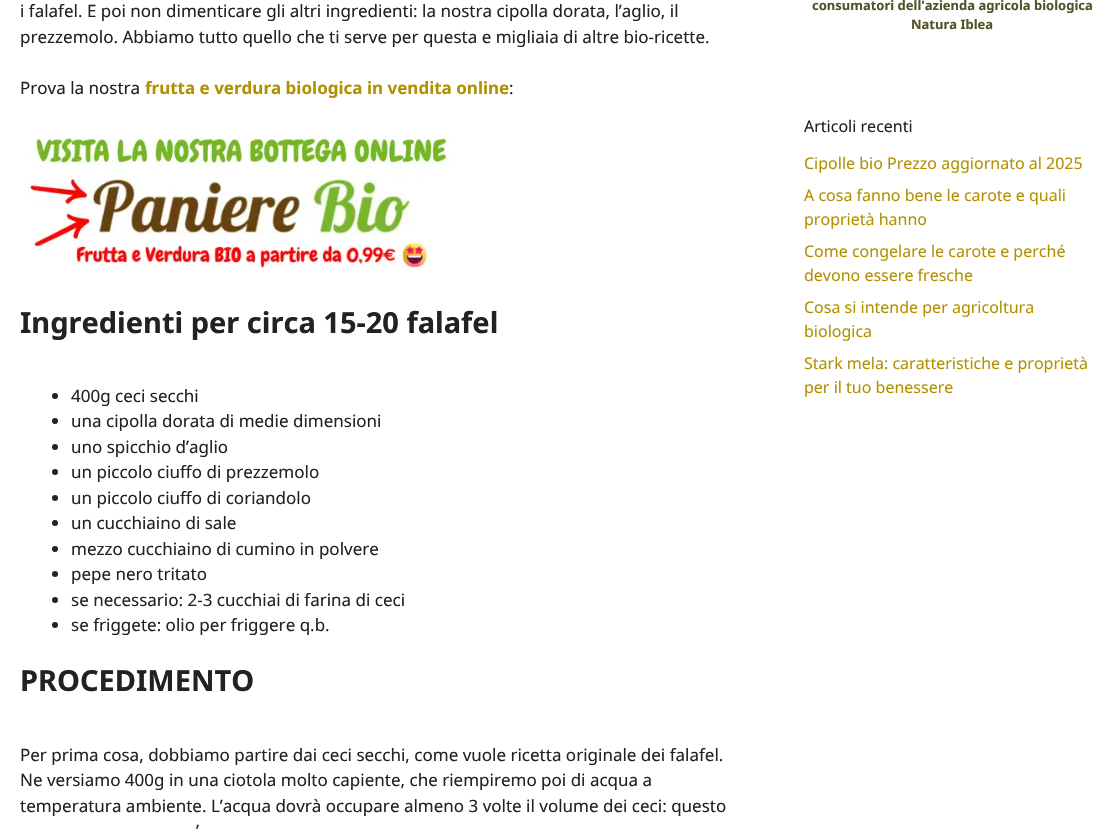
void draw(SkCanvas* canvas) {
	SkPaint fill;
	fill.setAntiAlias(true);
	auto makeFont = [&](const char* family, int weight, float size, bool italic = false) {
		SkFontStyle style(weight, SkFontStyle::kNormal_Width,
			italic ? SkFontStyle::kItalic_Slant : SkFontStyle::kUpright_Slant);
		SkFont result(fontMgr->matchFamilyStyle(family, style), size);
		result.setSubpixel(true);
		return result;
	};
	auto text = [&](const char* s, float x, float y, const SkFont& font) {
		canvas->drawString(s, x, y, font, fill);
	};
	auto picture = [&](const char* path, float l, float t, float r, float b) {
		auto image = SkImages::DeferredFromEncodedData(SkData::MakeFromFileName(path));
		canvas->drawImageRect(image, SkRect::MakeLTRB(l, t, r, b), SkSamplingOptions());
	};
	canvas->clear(0xFFFFFFFF);
	picture("image0.png", 26, 133, 450, 268);
	fill.setColor(0xFF222222);
	canvas->drawCircle(55, 396, 3, fill);
	canvas->drawCircle(55, 421, 3, fill);
	canvas->drawCircle(55, 447, 3, fill);
	canvas->drawCircle(55, 472, 3, fill);
	canvas->drawCircle(55, 498, 3, fill);
	canvas->drawCircle(55, 523, 3, fill);
	canvas->drawCircle(55, 549, 3, fill);
	canvas->drawCircle(55, 574, 3, fill);
	canvas->drawCircle(55, 600, 3, fill);
	canvas->drawCircle(55, 625, 3, fill);
	auto font1 = makeFont("Noto Sans", 400, 17);
	text("i falafel. E poi non dimenticare gli altri ingredienti: la nostra cipolla dorata, l’aglio, il", 20, 17, font1);
	text("prezzemolo. Abbiamo tutto quello che ti serve per questa e migliaia di altre bio-ricette.", 20, 43, font1);
	text("Prova la nostra", 20, 94, font1);
	auto font2 = makeFont("Noto Sans", 700, 17);
	fill.setColor(0xFFB29100);
	text("frutta e verdura biologica in vendita online", 145, 94, font2);
	fill.setColor(0xFF222222);
	text(":", 509, 94, font1);
	auto font3 = makeFont("Noto Sans", 700, 29);
	text("Ingredienti per circa 15-20 falafel", 20, 333, font3);
	text("400g ceci secchi", 71, 402, font1);
	text("una cipolla dorata di medie dimensioni", 71, 427, font1);
	text("uno spicchio d’aglio", 71, 453, font1);
	text("un piccolo ciuffo di prezzemolo", 71, 478, font1);
	text("un piccolo ciuffo di coriandolo", 71, 504, font1);
	text("un cucchiaino di sale", 71, 529, font1);
	text("mezzo cucchiaino di cumino in polvere", 71, 555, font1);
	text("pepe nero tritato", 71, 580, font1);
	text("se necessario: 2-3 cucchiai di farina di ceci", 71, 606, font1);
	text("se friggete: olio per friggere q.b.", 71, 631, font1);
	text("PROCEDIMENTO", 20, 691, font3);
	text("Per prima cosa, dobbiamo partire dai ceci secchi, come vuole ricetta originale dei falafel.", 20, 761, font1);
	text("Ne versiamo 400g in una ciotola molto capiente, che riempiremo poi di acqua a", 20, 786, font1);
	text("temperatura ambiente. L’acqua dovrà occupare almeno 3 volte il volume dei ceci: questo", 20, 812, font1);
	text("’", 196, 837, font1);
	auto font4 = makeFont("Noto Sans", 700, 13);
	fill.setColor(0xFF535226);
	text("consumatori dell'azienda agricola biologica", 812, 10, font4);
	text("Natura Iblea", 911, 29, font4);
	auto font5 = makeFont("Noto Sans", 400, 16);
	fill.setColor(0xFF222222);
	text("Articoli recenti", 804, 132, font5);
	fill.setColor(0xFFB29100);
	text("Cipolle bio Prezzo aggiornato al 2025", 804, 169, font5);
	text("A cosa fanno bene le carote e quali", 804, 201, font5);
	text("proprietà hanno", 804, 225, font5);
	text("Come congelare le carote e perché", 804, 257, font5);
	text("devono essere fresche", 804, 281, font5);
	text("Cosa si intende per agricoltura", 804, 313, font5);
	text("biologica", 804, 337, font5);
	text("Stark mela: caratteristiche e proprietà", 804, 369, font5);
	text("per il tuo benessere", 804, 393, font5);
}
